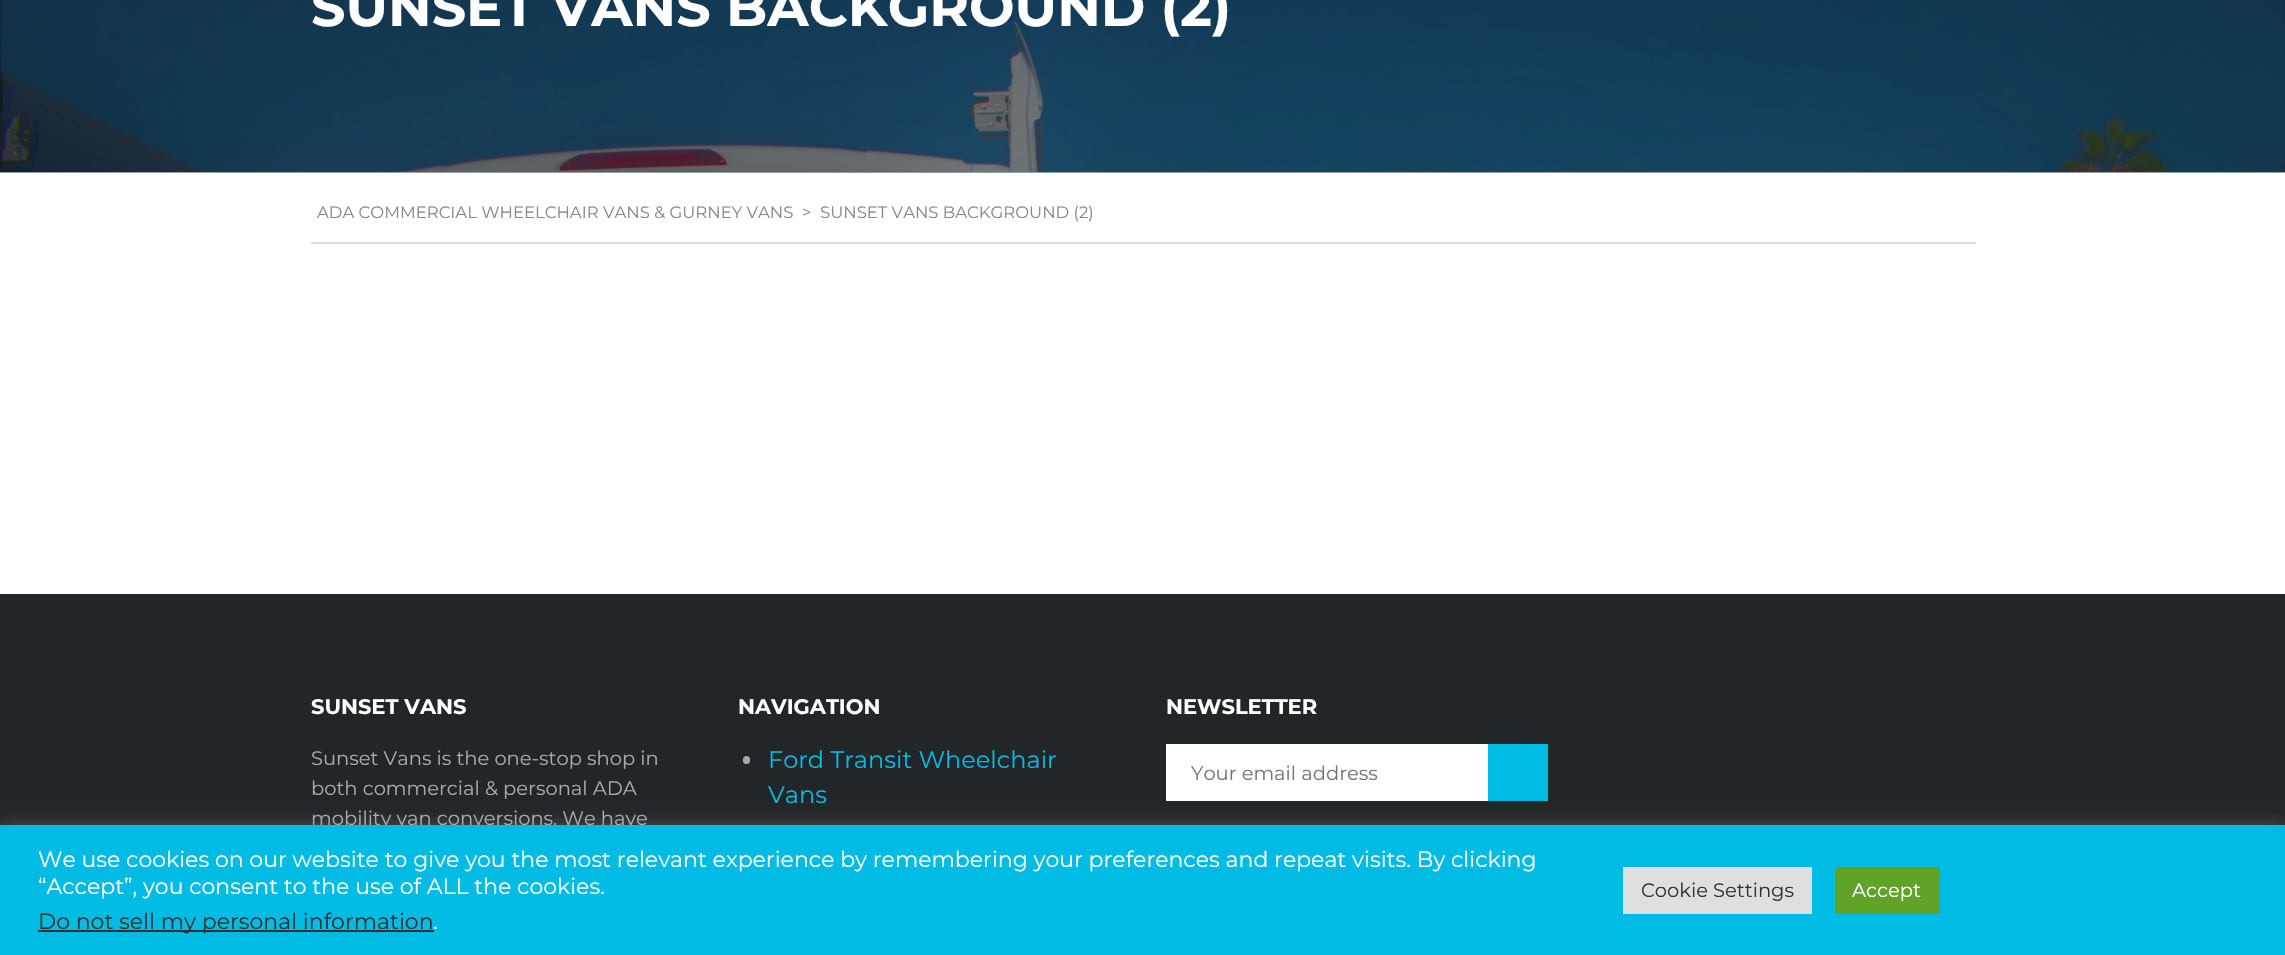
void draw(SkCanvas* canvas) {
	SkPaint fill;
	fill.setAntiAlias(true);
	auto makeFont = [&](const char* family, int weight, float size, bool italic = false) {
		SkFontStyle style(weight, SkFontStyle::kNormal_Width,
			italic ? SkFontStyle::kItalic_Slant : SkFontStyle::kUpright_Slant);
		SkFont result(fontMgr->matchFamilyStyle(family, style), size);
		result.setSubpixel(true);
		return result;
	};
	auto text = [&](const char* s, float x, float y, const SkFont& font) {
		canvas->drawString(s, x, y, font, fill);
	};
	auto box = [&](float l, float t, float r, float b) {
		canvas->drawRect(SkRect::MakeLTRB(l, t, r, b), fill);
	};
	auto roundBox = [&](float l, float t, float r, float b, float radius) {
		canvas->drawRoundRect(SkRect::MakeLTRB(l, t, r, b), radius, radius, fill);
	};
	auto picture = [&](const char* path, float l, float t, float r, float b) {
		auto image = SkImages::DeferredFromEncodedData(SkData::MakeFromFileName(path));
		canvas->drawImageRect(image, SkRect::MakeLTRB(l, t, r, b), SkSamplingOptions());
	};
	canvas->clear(0xFFFFFFFF);
	fill.setColor(0xFF8F9FAD);
	box(0, 172, 2285, 173);
	picture("image0.png", 0, 0, 2285, 172);
	fill.setColor(0xFFDDDDDD);
	box(311, 242, 1976, 244);
	fill.setColor(0xFF232628);
	box(0, 594, 2285, 825);
	fill.setColor(0xFFAAAAAA);
	roundBox(743, 756, 750, 764, 3.5f);
	fill.setColor(0xFFFFFFFF);
	box(1166, 744, 1488, 801);
	fill.setColor(0xFF00BBE3);
	box(1488, 744, 1548, 801);
	fill.setColor(0x4DACABAB);
	fill.setMaskFilter(SkMaskFilter::MakeBlur(kNormal_SkBlurStyle, 7.5f));
	canvas->drawRect(SkRect::MakeLTRB(0, 824, 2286, 954), fill);
	fill.setMaskFilter(nullptr);
	auto font1 = makeFont("Montserrat", 700, 54);
	fill.setColor(0xFFFFFFFF);
	text("SUNSET VANS BACKGROUND (2)", 311, 26, font1);
	auto font2 = makeFont("Montserrat", 400, 16.5f);
	fill.setColor(0xFF888888);
	text("ADA COMMERCIAL WHEELCHAIR VANS & GURNEY VANS", 317, 218, font2);
	text(">", 802, 218, font2);
	text("SUNSET VANS BACKGROUND (2)", 820, 218, font2);
	auto font3 = makeFont("Montserrat", 700, 21);
	fill.setColor(0xFFFFFFFF);
	text("SUNSET VANS", 311, 714, font3);
	auto font4 = makeFont("Montserrat", 400, 19.5f);
	fill.setColor(0xFFAAAAAA);
	text("Sunset Vans is the one-stop shop in", 311, 765, font4);
	text("both commercial & personal ADA", 311, 795, font4);
	text("mobility van conversions. We have", 311, 825, font4);
	fill.setColor(0xFFFFFFFF);
	text("NAVIGATION", 738, 714, font3);
	auto font5 = makeFont("Montserrat", 400, 24);
	fill.setColor(0xFF00BBE3);
	text("Ford Transit Wheelchair", 768, 768, font5);
	text("Vans", 768, 803, font5);
	fill.setColor(0xFFFFFFFF);
	text("NEWSLETTER", 1166, 714, font3);
	fill.setColor(0xFF757575);
	text("Your email address", 1191, 780, font4);
	fill.setColor(0xFF00BBE3);
	box(0, 825, 2285, 955);
	auto font6 = makeFont("Montserrat", 400, 22);
	fill.setColor(0xFFFFFFFF);
	text("We use cookies on our website to give you the most relevant experience by remembering your preferences and repeat visits. By clicking", 38, 867, font6);
	text("“Accept”, you consent to the use of ALL the cookies.", 38, 894, font6);
	fill.setColor(0xFF333333);
	box(38, 930, 434, 932);
	text("Do not sell my personal information", 38, 929, font6);
	fill.setColor(0xFFFFFFFF);
	text(".", 433, 929, font6);
	fill.setColor(0xFFDEDFE0);
	box(1623, 867, 1812, 914);
	fill.setColor(0xFF333333);
	text("Cookie Settings", 1641, 897, font4);
	fill.setColor(0xFF61A229);
	box(1835, 867, 1940, 914);
	fill.setColor(0xFFFFFFFF);
	text("Accept", 1852, 897, font4);
}
